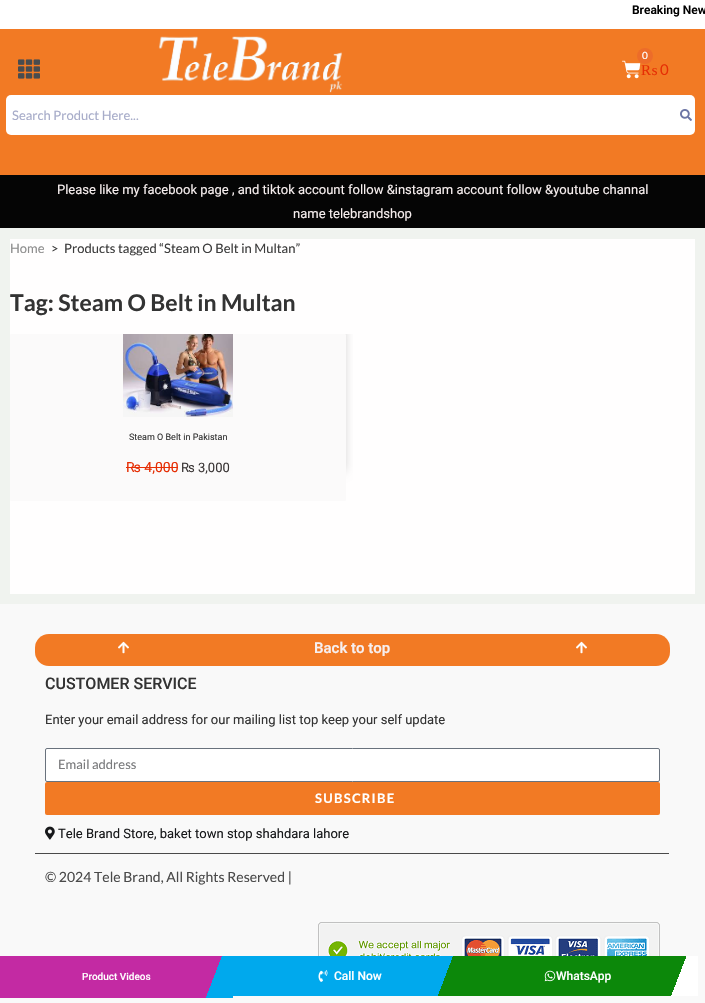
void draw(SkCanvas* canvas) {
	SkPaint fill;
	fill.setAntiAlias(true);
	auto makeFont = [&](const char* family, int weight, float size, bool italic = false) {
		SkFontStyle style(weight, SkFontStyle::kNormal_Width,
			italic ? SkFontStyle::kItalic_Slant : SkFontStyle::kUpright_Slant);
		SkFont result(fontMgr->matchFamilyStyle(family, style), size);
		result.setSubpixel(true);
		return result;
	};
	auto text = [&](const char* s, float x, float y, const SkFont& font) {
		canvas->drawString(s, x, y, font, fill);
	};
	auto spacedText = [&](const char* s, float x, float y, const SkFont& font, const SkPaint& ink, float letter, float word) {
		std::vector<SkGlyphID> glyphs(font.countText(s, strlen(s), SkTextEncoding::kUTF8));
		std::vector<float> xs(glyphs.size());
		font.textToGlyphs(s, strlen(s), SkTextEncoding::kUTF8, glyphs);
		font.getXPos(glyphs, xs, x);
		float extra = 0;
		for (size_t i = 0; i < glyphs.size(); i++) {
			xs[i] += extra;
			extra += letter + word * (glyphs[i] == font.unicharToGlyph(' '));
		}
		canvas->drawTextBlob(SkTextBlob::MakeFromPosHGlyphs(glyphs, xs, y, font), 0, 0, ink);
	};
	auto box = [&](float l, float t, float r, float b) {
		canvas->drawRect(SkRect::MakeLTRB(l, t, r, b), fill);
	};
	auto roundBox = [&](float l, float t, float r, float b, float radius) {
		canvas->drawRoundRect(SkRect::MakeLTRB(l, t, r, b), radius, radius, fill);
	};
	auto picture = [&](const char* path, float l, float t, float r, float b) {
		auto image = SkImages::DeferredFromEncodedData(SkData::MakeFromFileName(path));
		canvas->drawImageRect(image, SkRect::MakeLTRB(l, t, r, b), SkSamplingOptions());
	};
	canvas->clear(0xFFF0F3EF);
	fill.setColor(0xFFFFFFFF);
	box(0, 0, 705, 29);
	fill.setColor(0xFFF27A24);
	box(0, 29, 705, 175);
	picture("image0.png", 622, 60, 641, 79);
	fill.setColor(0xFFED6C29);
	canvas->drawCircle(645, 56, 8, fill);
	picture("image1.png", 158, 36, 343, 93);
	fill.setColor(0xFFFFFFFF);
	roundBox(6, 95, 695, 135, 5);
	picture("image2.png", 680, 109, 692, 121);
	picture("image3.png", 18, 59, 40, 79);
	fill.setColor(0xFF050505);
	box(0, 175, 705, 228);
	fill.setColor(0xFFFFFEFE);
	box(10, 239, 695, 594);
	canvas->save();
	canvas->clipRect(SkRect::MakeLTRB(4, 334, 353, 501));
	fill.setColor(0x38000000);
	fill.setMaskFilter(SkMaskFilter::MakeBlur(kNormal_SkBlurStyle, 5));
	canvas->drawRect(SkRect::MakeLTRB(32, 328, 344, 471), fill);
	fill.setMaskFilter(nullptr);
	canvas->restore();
	fill.setColor(0xFFFBFAFA);
	roundBox(10, 334, 346, 501, 1);
	picture("image4.png", 123, 334, 233, 417);
	fill.setColor(0xFFE62E04);
	box(126, 467, 178, 468);
	fill.setColor(0xFFF9F9F9);
	box(0, 604, 705, 1003);
	fill.setColor(0xFFF27A24);
	roundBox(35, 634, 670, 666, 14);
	picture("image5.png", 118, 641, 129, 654);
	picture("image5.png", 576, 641, 587, 654);
	fill.setColor(0xFF4A4A4A);
	box(35, 853, 669, 854);
	fill.setColor(0xFFFFFFFF);
	canvas->drawRoundRect(SkRect::MakeLTRB(45.5f, 748.5f, 659.5f, 781.5f), 1.5f, 1.5f, fill);
	fill.setStyle(SkPaint::kStroke_Style);
	fill.setStrokeWidth(1);
	fill.setColor(0xFF69727D);
	canvas->drawRoundRect(SkRect::MakeLTRB(45.5f, 748.5f, 659.5f, 781.5f), 1.5f, 1.5f, fill);
	fill.setStyle(SkPaint::kFill_Style);
	fill.setColor(0xFFF27A24);
	roundBox(45, 782, 660, 815, 2);
	picture("image6.png", 45, 826, 55, 840);
	picture("image7.png", 318, 922, 660, 956);
	{
		const SkColor colors[] = {0xFFC32AA3, 0xFF00A9ED};
		const float stops[] = {0.89f, 0.89f};
		const SkPoint ends[] = {{7.9f, 935}, {225, 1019}};
		fill.setShader(SkGradientShader::MakeLinear(ends, colors, stops, 2, SkTileMode::kClamp));
		fill.setAlpha(255);
	}
	box(0, 956, 233, 998);
	{
		const SkColor colors[] = {0xFF00A9ED, 0xFF0C880A};
		const float stops[] = {0.89f, 0.89f};
		const SkPoint ends[] = {{241, 935}, {457, 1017}};
		fill.setShader(SkGradientShader::MakeLinear(ends, colors, stops, 2, SkTileMode::kClamp));
		fill.setAlpha(255);
	}
	box(233, 956, 465, 996);
	picture("image8.png", 318, 970, 328, 982);
	{
		const SkColor colors[] = {0xFF0C880A, 0xFFFFFFFF};
		const float stops[] = {0.89f, 0.89f};
		const SkPoint ends[] = {{473, 934}, {690, 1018}};
		fill.setShader(SkGradientShader::MakeLinear(ends, colors, stops, 2, SkTileMode::kClamp));
		fill.setAlpha(255);
	}
	box(465, 956, 698, 996);
	picture("image9.png", 544, 970, 556, 982);
	auto font1 = makeFont("Roboto", 600, 12);
	fill.setShader(nullptr);
	fill.setColor(0xFF000000);
	text("Breaking New", 632, 14, font1);
	auto font2 = makeFont("Lato", 400, 10);
	fill.setColor(0xFFFFFFFF);
	text("0", 642, 59, font2);
	auto font3 = makeFont("Liberation Serif", 400, 15);
	fill.setColor(0xFFE62E04);
	text("₨", 641, 75, font3);
	auto font4 = makeFont("Lato", 400, 15);
	text("0", 660, 75, font4);
	auto font5 = makeFont("Lato", 400, 13);
	fill.setColor(0xFFA7ACC9);
	text("Search Product Here...", 12, 120, font5);
	auto font6 = makeFont("Roboto", 400, 13);
	fill.setColor(0xFFF7EFEF);
	text("Please like my facebook page , and tiktok account follow &instagram account follow &youtube channal", 57, 194, font6);
	text("name telebrandshop", 293, 218, font6);
	fill.setColor(0xFF8E8E8E);
	text("Home", 10, 253, font5);
	fill.setColor(0xFF3D3D3D);
	text(">", 51, 253, font5);
	text("Products tagged “Steam O Belt in Multan”", 64, 253, font5);
	auto font7 = makeFont("Lato", 700, 23);
	fill.setColor(0xFF333333);
	text("Tag: Steam O Belt in Multan", 10, 311, font7);
	auto font8 = makeFont("Roboto", 400, 9);
	text("Steam O Belt in Pakistan", 129, 440, font8);
	auto font9 = makeFont("Roboto", 400, 14);
	fill.setColor(0xFFE62E04);
	text("₨ 4,000", 126, 472, font9);
	fill.setColor(0xFF3B3737);
	text("₨ 3,000", 181, 472, font6);
	auto font10 = makeFont("Roboto", 600, 15);
	fill.setColor(0xFFF7EFEF);
	text("Back to top", 314, 653, font10);
	auto font11 = makeFont("Roboto", 500, 16);
	fill.setColor(0xFF333333);
	text("CUSTOMER SERVICE", 45, 689, font11);
	text("Enter your email address for our mailing list top keep your self update", 45, 724, font6);
	fill.setColor(0xFF797A7C);
	text("Email address", 58, 769, font5);
	auto font12 = makeFont("Lato", 700, 13);
	fill.setColor(0xFFFFFFFF);
	spacedText("SUBSCRIBE", 315, 803, font12, fill, 1.25f, 0);
	fill.setColor(0xFF17181A);
	text("Tele Brand Store, baket town stop shahdara lahore", 58, 838, font6);
	auto font13 = makeFont("Lato", 400, 14);
	fill.setColor(0xFF4A4A4A);
	text("© 2024 Tele Brand, All Rights Reserved |", 45, 882, font13);
	auto font14 = makeFont("Roboto", 500, 10);
	fill.setColor(0xFFFFFFFF);
	text("Product Videos", 82, 980, font14);
	auto font15 = makeFont("Roboto", 500, 12);
	text("Call Now", 334, 980, font15);
	text("WhatsApp", 556, 980, font15);
}
